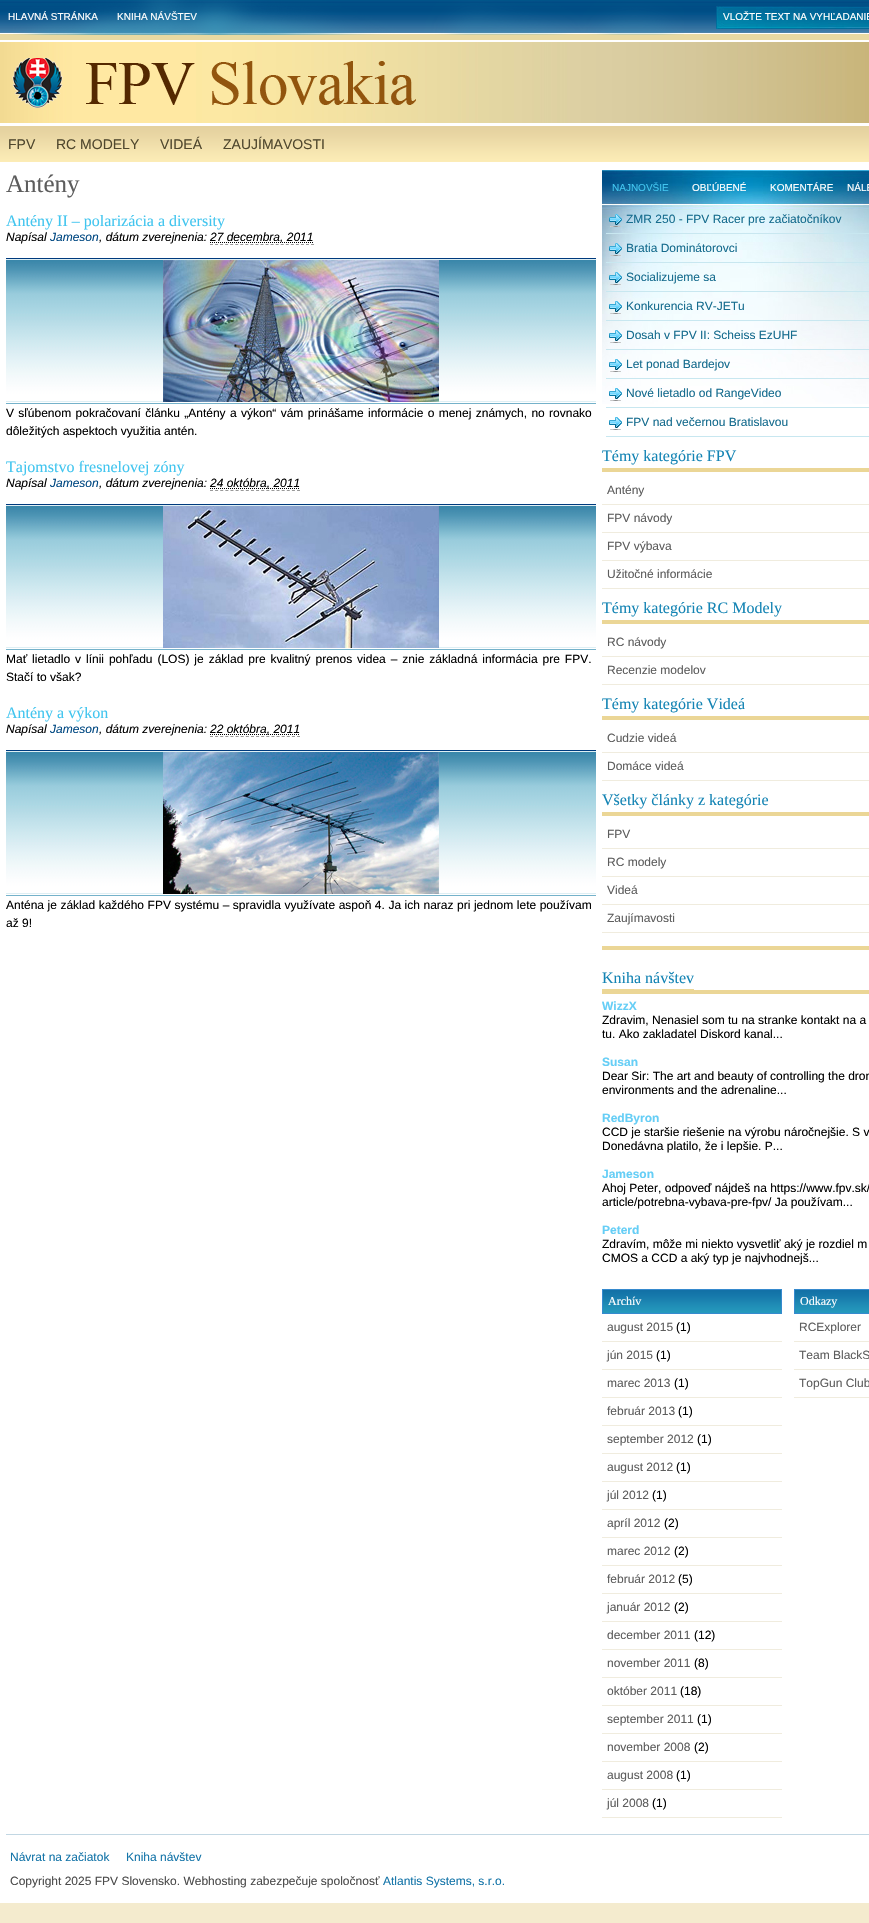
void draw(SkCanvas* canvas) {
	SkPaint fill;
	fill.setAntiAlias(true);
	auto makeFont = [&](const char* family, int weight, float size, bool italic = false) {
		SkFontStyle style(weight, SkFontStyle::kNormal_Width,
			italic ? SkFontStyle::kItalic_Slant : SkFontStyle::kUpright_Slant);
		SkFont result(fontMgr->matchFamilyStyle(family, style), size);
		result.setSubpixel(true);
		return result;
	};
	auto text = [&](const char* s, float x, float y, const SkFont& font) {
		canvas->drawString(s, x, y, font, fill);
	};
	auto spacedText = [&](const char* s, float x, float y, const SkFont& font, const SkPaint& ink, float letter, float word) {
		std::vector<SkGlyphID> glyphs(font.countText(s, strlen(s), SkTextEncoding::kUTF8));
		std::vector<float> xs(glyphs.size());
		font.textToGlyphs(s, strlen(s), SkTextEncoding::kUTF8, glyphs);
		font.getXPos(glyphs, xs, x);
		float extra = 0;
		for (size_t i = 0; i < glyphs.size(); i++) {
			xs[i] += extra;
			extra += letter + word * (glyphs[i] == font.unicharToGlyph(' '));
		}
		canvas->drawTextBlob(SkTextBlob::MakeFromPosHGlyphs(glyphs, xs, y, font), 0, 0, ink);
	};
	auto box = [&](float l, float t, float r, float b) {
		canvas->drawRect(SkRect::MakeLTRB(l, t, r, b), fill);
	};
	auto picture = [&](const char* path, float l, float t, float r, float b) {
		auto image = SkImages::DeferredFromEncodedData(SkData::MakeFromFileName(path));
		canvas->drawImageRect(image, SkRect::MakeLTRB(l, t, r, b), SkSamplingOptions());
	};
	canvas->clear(0xFFF4EBCE);
	picture("image0.png", 0, 0, 869, 164);
	picture("image1.png", 0, 42, 869, 123);
	picture("image2.png", 13, 0, 684, 35);
	picture("image3.png", 716, 6, 869, 29);
	picture("image4.png", 12, 58, 416, 108);
	fill.setColor(0xFFFFFFFF);
	box(0, 164, 869, 1903);
	fill.setStyle(SkPaint::kStroke_Style);
	fill.setStrokeWidth(1);
	fill.setColor(0xFF999999);
	fill.setPathEffect(SkDashPathEffect::Make({{3, 2.05f}}, 0));
	canvas->drawPath(SkPathBuilder().moveTo(210, 244.5f).lineTo(314, 244.5f).detach(), fill);
	fill.setPathEffect(nullptr);
	fill.setColor(0xFF000000);
	fill.setPathEffect(SkDashPathEffect::Make({{1, 1}}, 0));
	canvas->drawPath(SkPathBuilder().moveTo(210, 242.5f).lineTo(313.5f, 242.5f).detach(), fill);
	fill.setPathEffect(nullptr);
	picture("image5.png", 6, 258, 596, 404);
	picture("image6.png", 163, 260, 439, 402);
	fill.setColor(0xFF999999);
	fill.setPathEffect(SkDashPathEffect::Make({{3, 2.12f}}, 0));
	canvas->drawPath(SkPathBuilder().moveTo(210, 490.5f).lineTo(300, 490.5f).detach(), fill);
	fill.setPathEffect(nullptr);
	fill.setColor(0xFF000000);
	fill.setPathEffect(SkDashPathEffect::Make({{1, 1}}, 0));
	canvas->drawPath(SkPathBuilder().moveTo(210, 488.5f).lineTo(300, 488.5f).detach(), fill);
	fill.setPathEffect(nullptr);
	picture("image5.png", 6, 504, 596, 650);
	picture("image7.png", 163, 506, 439, 648);
	fill.setColor(0xFF999999);
	fill.setPathEffect(SkDashPathEffect::Make({{3, 2.12f}}, 0));
	canvas->drawPath(SkPathBuilder().moveTo(210, 736.5f).lineTo(300, 736.5f).detach(), fill);
	fill.setPathEffect(nullptr);
	fill.setColor(0xFF000000);
	fill.setPathEffect(SkDashPathEffect::Make({{1, 1}}, 0));
	canvas->drawPath(SkPathBuilder().moveTo(210, 734.5f).lineTo(300, 734.5f).detach(), fill);
	fill.setPathEffect(nullptr);
	picture("image5.png", 6, 750, 596, 896);
	picture("image8.png", 163, 752, 439, 894);
	picture("image9.png", 602, 170, 869, 404);
	picture("image10.png", 609, 214, 622, 227);
	fill.setStyle(SkPaint::kFill_Style);
	fill.setColor(0xFFC8E7F0);
	box(606, 233, 869, 234);
	picture("image11.png", 609, 243, 622, 256);
	box(606, 262, 869, 263);
	picture("image12.png", 609, 272, 622, 285);
	box(606, 291, 869, 292);
	picture("image13.png", 609, 301, 622, 314);
	box(606, 320, 869, 321);
	picture("image14.png", 609, 330, 622, 343);
	box(606, 349, 869, 350);
	picture("image15.png", 609, 359, 622, 372);
	box(606, 378, 869, 379);
	picture("image16.png", 609, 388, 622, 401);
	box(606, 407, 869, 408);
	picture("image17.png", 609, 417, 622, 430);
	box(606, 436, 869, 437);
	fill.setColor(0xFFEBD696);
	box(602, 468, 869, 472);
	fill.setColor(0xFFF0ECDE);
	box(602, 504, 869, 505);
	box(602, 532, 869, 533);
	box(602, 560, 869, 561);
	box(602, 588, 869, 589);
	fill.setColor(0xFFEBD696);
	box(602, 620, 869, 624);
	fill.setColor(0xFFF0ECDE);
	box(602, 656, 869, 657);
	box(602, 684, 869, 685);
	fill.setColor(0xFFEBD696);
	box(602, 716, 869, 720);
	fill.setColor(0xFFF0ECDE);
	box(602, 752, 869, 753);
	box(602, 780, 869, 781);
	fill.setColor(0xFFEBD696);
	box(602, 812, 869, 816);
	fill.setColor(0xFFF0ECDE);
	box(602, 848, 869, 849);
	box(602, 876, 869, 877);
	box(602, 904, 869, 905);
	box(602, 932, 869, 933);
	fill.setColor(0xFFEBD696);
	box(602, 946, 869, 950);
	box(602, 990, 869, 994);
	box(602, 989, 694, 990);
	picture("image18.png", 603, 1290, 781, 1313);
	fill.setStyle(SkPaint::kStroke_Style);
	fill.setColor(0xFF368ACE);
	canvas->drawRect(SkRect::MakeLTRB(602.5f, 1289.5f, 781.5f, 1313.5f), fill);
	fill.setStyle(SkPaint::kFill_Style);
	fill.setColor(0xFFF0ECDE);
	box(602, 1341, 782, 1342);
	box(602, 1369, 782, 1370);
	box(602, 1397, 782, 1398);
	box(602, 1425, 782, 1426);
	box(602, 1453, 782, 1454);
	box(602, 1481, 782, 1482);
	box(602, 1509, 782, 1510);
	box(602, 1537, 782, 1538);
	box(602, 1565, 782, 1566);
	box(602, 1593, 782, 1594);
	box(602, 1621, 782, 1622);
	box(602, 1649, 782, 1650);
	box(602, 1677, 782, 1678);
	box(602, 1705, 782, 1706);
	box(602, 1733, 782, 1734);
	box(602, 1761, 782, 1762);
	box(602, 1789, 782, 1790);
	box(602, 1817, 782, 1818);
	picture("image19.png", 795, 1290, 869, 1313);
	fill.setStyle(SkPaint::kStroke_Style);
	fill.setColor(0xFF368ACE);
	canvas->drawRect(SkRect::MakeLTRB(794.5f, 1289.5f, 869.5f, 1313.5f), fill);
	fill.setStyle(SkPaint::kFill_Style);
	fill.setColor(0xFFF0ECDE);
	box(794, 1341, 869, 1342);
	box(794, 1369, 869, 1370);
	box(794, 1397, 869, 1398);
	fill.setColor(0xFFC2D7E3);
	box(6, 1834, 869, 1835);
	auto font1 = makeFont("Liberation Sans", 400, 10);
	fill.setColor(0xFFFFFFFF);
	text("HLAVNÁ STRÁNKA", 8, 20, font1);
	text("KNIHA NÁVŠTEV", 117, 20, font1);
	text("VLOŽTE TEXT NA VYHĽADANIE", 723, 20, font1);
	auto font2 = makeFont("Liberation Sans", 400, 14);
	fill.setColor(0xFF50482E);
	text("FPV", 8, 149, font2);
	text("RC MODELY", 56, 149, font2);
	text("VIDEÁ", 160, 149, font2);
	text("ZAUJÍMAVOSTI", 223, 149, font2);
	auto font3 = makeFont("Liberation Serif", 400, 25);
	fill.setColor(0xFF5D5D5D);
	text("Antény", 6, 192, font3);
	auto font4 = makeFont("Liberation Serif", 400, 16);
	fill.setColor(0xFF41C5EF);
	text("Antény II – polarizácia a diversity", 6, 226, font4);
	auto font5 = makeFont("Liberation Sans", 400, 12, true);
	fill.setColor(0xFF000000);
	text("Napísal", 6, 241, font5);
	fill.setColor(0xFF004882);
	text("Jameson", 50, 241, font5);
	fill.setColor(0xFF000000);
	text(", dátum zverejnenia:", 99, 241, font5);
	text("27 decembra, 2011", 210, 241, font5);
	auto font6 = makeFont("Liberation Sans", 400, 12);
	spacedText("V sľúbenom pokračovaní článku „Antény a výkon“ vám prinášame informácie o menej známych, no rovnako", 6, 417, font6, fill, 0, 1);
	text("dôležitých aspektoch využitia antén.", 6, 435, font6);
	fill.setColor(0xFF41C5EF);
	text("Tajomstvo fresnelovej zóny", 6, 472, font4);
	fill.setColor(0xFF000000);
	text("Napísal", 6, 487, font5);
	fill.setColor(0xFF004882);
	text("Jameson", 50, 487, font5);
	fill.setColor(0xFF000000);
	text(", dátum zverejnenia:", 99, 487, font5);
	text("24 októbra, 2011", 210, 487, font5);
	spacedText("Mať lietadlo v línii pohľadu (LOS) je základ pre kvalitný prenos videa – znie základná informácia pre FPV.", 6, 663, font6, fill, 0, 1.6f);
	text("Stačí to však?", 6, 681, font6);
	fill.setColor(0xFF41C5EF);
	text("Antény a výkon", 6, 718, font4);
	fill.setColor(0xFF000000);
	text("Napísal", 6, 733, font5);
	fill.setColor(0xFF004882);
	text("Jameson", 50, 733, font5);
	fill.setColor(0xFF000000);
	text(", dátum zverejnenia:", 99, 733, font5);
	text("22 októbra, 2011", 210, 733, font5);
	spacedText("Anténa je základ každého FPV systému – spravidla využívate aspoň 4. Ja ich naraz pri jednom lete používam", 6, 909, font6, fill, 0, 0.2f);
	text("až 9!", 6, 927, font6);
	fill.setColor(0xFF41C5EF);
	text("NAJNOVŠIE", 612, 191, font1);
	fill.setColor(0xFFFFFFFF);
	text("OBĽÚBENÉ", 692, 191, font1);
	text("KOMENTÁRE", 770, 191, font1);
	text("NÁLE", 847, 191, font1);
	fill.setColor(0xFF166C8E);
	text("ZMR 250 - FPV Racer pre začiatočníkov", 626, 223, font6);
	text("Bratia Dominátorovci", 626, 252, font6);
	text("Socializujeme sa", 626, 281, font6);
	text("Konkurencia RV-JETu", 626, 310, font6);
	text("Dosah v FPV II: Scheiss EzUHF", 626, 339, font6);
	text("Let ponad Bardejov", 626, 368, font6);
	text("Nové lietadlo od RangeVideo", 626, 397, font6);
	text("FPV nad večernou Bratislavou", 626, 426, font6);
	fill.setColor(0xFF1484B4);
	text("Témy kategórie FPV", 602, 461, font4);
	fill.setColor(0xFF5D5D5D);
	text("Antény", 607, 494, font6);
	text("FPV návody", 607, 522, font6);
	text("FPV výbava", 607, 550, font6);
	text("Užitočné informácie", 607, 578, font6);
	fill.setColor(0xFF1484B4);
	text("Témy kategórie RC Modely", 602, 613, font4);
	fill.setColor(0xFF5D5D5D);
	text("RC návody", 607, 646, font6);
	text("Recenzie modelov", 607, 674, font6);
	fill.setColor(0xFF1484B4);
	text("Témy kategórie Videá", 602, 709, font4);
	fill.setColor(0xFF5D5D5D);
	text("Cudzie videá", 607, 742, font6);
	text("Domáce videá", 607, 770, font6);
	fill.setColor(0xFF1484B4);
	text("Všetky články z kategórie", 602, 805, font4);
	fill.setColor(0xFF5D5D5D);
	text("FPV", 607, 838, font6);
	text("RC modely", 607, 866, font6);
	text("Videá", 607, 894, font6);
	text("Zaujímavosti", 607, 922, font6);
	fill.setColor(0xFF1484B4);
	text("Kniha návštev", 602, 983, font4);
	auto font7 = makeFont("Liberation Sans", 700, 12);
	fill.setColor(0xFF65CEF6);
	text("WizzX", 602, 1010, font7);
	fill.setColor(0xFF000000);
	text("Zdravim, Nenasiel som tu na stranke kontakt na a", 602, 1024, font6);
	text("tu. Ako zakladatel Diskord kanal...", 602, 1038, font6);
	fill.setColor(0xFF65CEF6);
	text("Susan", 602, 1066, font7);
	fill.setColor(0xFF000000);
	text("Dear Sir: The art and beauty of controlling the dron", 602, 1080, font6);
	text("environments and the adrenaline...", 602, 1094, font6);
	fill.setColor(0xFF65CEF6);
	text("RedByron", 602, 1122, font7);
	fill.setColor(0xFF000000);
	text("CCD je staršie riešenie na výrobu náročnejšie. S v", 602, 1136, font6);
	text("Donedávna platilo, že i lepšie. P...", 602, 1150, font6);
	fill.setColor(0xFF65CEF6);
	text("Jameson", 602, 1178, font7);
	fill.setColor(0xFF000000);
	text("Ahoj Peter, odpoveď nájdeš na https://www.fpv.sk/", 602, 1192, font6);
	text("article/potrebna-vybava-pre-fpv/ Ja používam...", 602, 1206, font6);
	fill.setColor(0xFF65CEF6);
	text("Peterd", 602, 1234, font7);
	fill.setColor(0xFF000000);
	text("Zdravím, môže mi niekto vysvetliť aký je rozdiel m", 602, 1248, font6);
	text("CMOS a CCD a aký typ je najvhodnejš...", 602, 1262, font6);
	auto font8 = makeFont("Liberation Serif", 400, 12);
	fill.setColor(0xFFFFFFFF);
	text("Archív", 608, 1305, font8);
	fill.setColor(0xFF5D5D5D);
	text("august 2015", 607, 1331, font6);
	fill.setColor(0xFF000000);
	text("(1)", 676, 1331, font6);
	fill.setColor(0xFF5D5D5D);
	text("jún 2015", 607, 1359, font6);
	fill.setColor(0xFF000000);
	text("(1)", 656, 1359, font6);
	fill.setColor(0xFF5D5D5D);
	text("marec 2013", 607, 1387, font6);
	fill.setColor(0xFF000000);
	text("(1)", 674, 1387, font6);
	fill.setColor(0xFF5D5D5D);
	text("február 2013", 607, 1415, font6);
	fill.setColor(0xFF000000);
	text("(1)", 678, 1415, font6);
	fill.setColor(0xFF5D5D5D);
	text("september 2012", 607, 1443, font6);
	fill.setColor(0xFF000000);
	text("(1)", 697, 1443, font6);
	fill.setColor(0xFF5D5D5D);
	text("august 2012", 607, 1471, font6);
	fill.setColor(0xFF000000);
	text("(1)", 676, 1471, font6);
	fill.setColor(0xFF5D5D5D);
	text("júl 2012", 607, 1499, font6);
	fill.setColor(0xFF000000);
	text("(1)", 652, 1499, font6);
	fill.setColor(0xFF5D5D5D);
	text("apríl 2012", 607, 1527, font6);
	fill.setColor(0xFF000000);
	text("(2)", 664, 1527, font6);
	fill.setColor(0xFF5D5D5D);
	text("marec 2012", 607, 1555, font6);
	fill.setColor(0xFF000000);
	text("(2)", 674, 1555, font6);
	fill.setColor(0xFF5D5D5D);
	text("február 2012", 607, 1583, font6);
	fill.setColor(0xFF000000);
	text("(5)", 678, 1583, font6);
	fill.setColor(0xFF5D5D5D);
	text("január 2012", 607, 1611, font6);
	fill.setColor(0xFF000000);
	text("(2)", 674, 1611, font6);
	fill.setColor(0xFF5D5D5D);
	text("december 2011", 607, 1639, font6);
	fill.setColor(0xFF000000);
	text("(12)", 694, 1639, font6);
	fill.setColor(0xFF5D5D5D);
	text("november 2011", 607, 1667, font6);
	fill.setColor(0xFF000000);
	text("(8)", 694, 1667, font6);
	fill.setColor(0xFF5D5D5D);
	text("október 2011", 607, 1695, font6);
	fill.setColor(0xFF000000);
	text("(18)", 680, 1695, font6);
	fill.setColor(0xFF5D5D5D);
	text("september 2011", 607, 1723, font6);
	fill.setColor(0xFF000000);
	text("(1)", 697, 1723, font6);
	fill.setColor(0xFF5D5D5D);
	text("november 2008", 607, 1751, font6);
	fill.setColor(0xFF000000);
	text("(2)", 694, 1751, font6);
	fill.setColor(0xFF5D5D5D);
	text("august 2008", 607, 1779, font6);
	fill.setColor(0xFF000000);
	text("(1)", 676, 1779, font6);
	fill.setColor(0xFF5D5D5D);
	text("júl 2008", 607, 1807, font6);
	fill.setColor(0xFF000000);
	text("(1)", 652, 1807, font6);
	fill.setColor(0xFFFFFFFF);
	text("Odkazy", 800, 1305, font8);
	fill.setColor(0xFF5D5D5D);
	text("RCExplorer", 799, 1331, font6);
	text("Team BlackS", 799, 1359, font6);
	text("TopGun Club", 799, 1387, font6);
	fill.setColor(0xFF1575A9);
	text("Návrat na začiatok", 10, 1861, font6);
	text("Kniha návštev", 126, 1861, font6);
	fill.setColor(0xFF4B4B4B);
	text("Copyright 2025 FPV Slovensko. Webhosting zabezpečuje spoločnosť", 10, 1885, font6);
	fill.setColor(0xFF1575A9);
	text("Atlantis Systems, s.r.o.", 383, 1885, font6);
}
